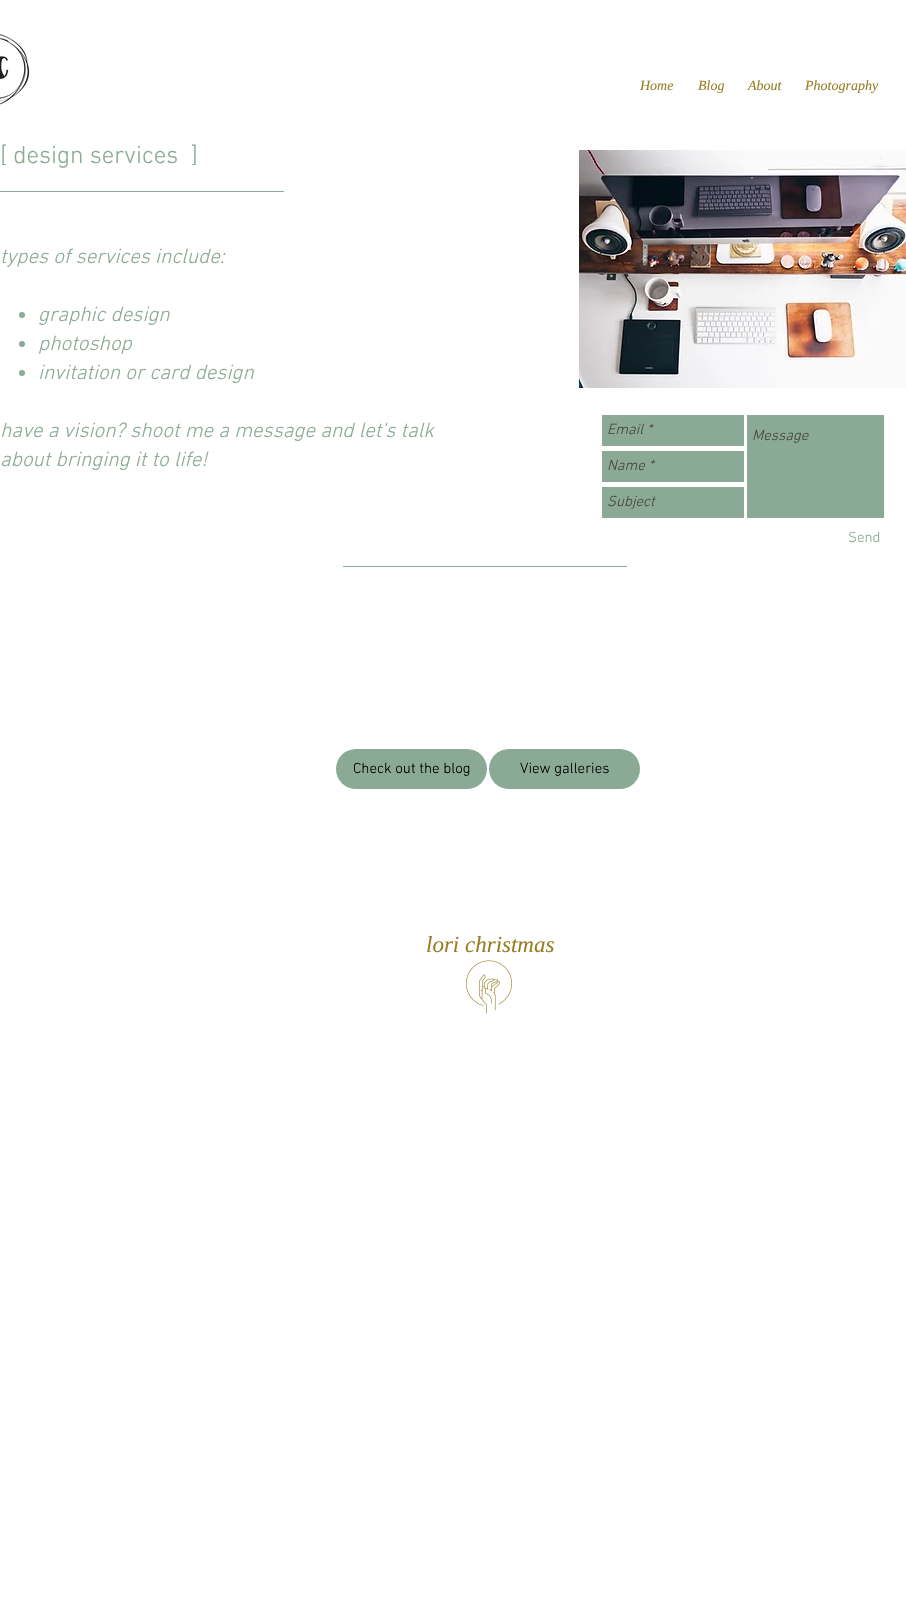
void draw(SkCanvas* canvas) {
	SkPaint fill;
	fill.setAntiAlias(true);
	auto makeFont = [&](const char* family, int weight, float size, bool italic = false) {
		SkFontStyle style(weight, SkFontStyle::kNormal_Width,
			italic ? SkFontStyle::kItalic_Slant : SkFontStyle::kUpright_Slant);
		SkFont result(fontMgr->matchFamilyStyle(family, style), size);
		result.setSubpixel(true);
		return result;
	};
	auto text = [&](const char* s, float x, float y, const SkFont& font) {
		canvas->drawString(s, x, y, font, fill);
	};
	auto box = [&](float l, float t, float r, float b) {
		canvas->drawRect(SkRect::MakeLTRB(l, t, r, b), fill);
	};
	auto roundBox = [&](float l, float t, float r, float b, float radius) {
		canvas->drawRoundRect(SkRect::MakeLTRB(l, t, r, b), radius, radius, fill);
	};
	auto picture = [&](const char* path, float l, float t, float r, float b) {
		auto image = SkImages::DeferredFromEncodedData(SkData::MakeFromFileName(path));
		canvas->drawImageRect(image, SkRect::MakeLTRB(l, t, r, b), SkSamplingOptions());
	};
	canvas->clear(0xFFFFFFFF);
	picture("image0.png", 0, 34, 30, 105);
	picture("image1.png", 579, 150, 906, 388);
	fill.setColor(0xFF8BAA95);
	box(0, 191, 284, 192);
	canvas->drawCircle(22, 315, 3, fill);
	canvas->drawCircle(22, 344, 3, fill);
	canvas->drawCircle(22, 373, 3, fill);
	box(602, 415, 744, 446);
	box(747, 415, 884, 518);
	box(602, 451, 744, 482);
	box(602, 487, 744, 518);
	box(343, 566, 627, 567);
	roundBox(336, 749, 487, 789, 20);
	roundBox(489, 749, 640, 789, 20);
	picture("image2.png", 466, 960, 512, 1014);
	auto font1 = makeFont("Liberation Serif", 400, 14, true);
	fill.setColor(0xFF977E25);
	text("Home", 640, 90, font1);
	text("Blog", 698, 90, font1);
	text("About", 748, 90, font1);
	text("Photography", 805, 90, font1);
	auto font2 = makeFont("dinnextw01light", 300, 25);
	fill.setColor(0xFF8BAA95);
	text("[ design services", 0, 163, font2);
	text("]", 191, 163, font2);
	auto font3 = makeFont("dinnextw01light", 300, 21, true);
	text("types of services include:", 0, 263, font3);
	text("graphic design", 38, 321, font3);
	text("photoshop", 38, 350, font3);
	text("invitation or card design", 38, 379, font3);
	text("have a vision? shoot me a message and let's talk", 0, 437, font3);
	text("about bringing it to life!", 0, 466, font3);
	auto font4 = makeFont("dinnextw01light", 300, 15, true);
	fill.setColor(0xFF494440);
	text("Email *", 607, 434, font4);
	text("Message", 752, 440, font4);
	text("Name *", 607, 470, font4);
	text("Subject", 607, 506, font4);
	auto font5 = makeFont("dinnextw01light", 300, 15);
	fill.setColor(0xFF8BAA95);
	text("Send", 848, 542, font5);
	fill.setColor(0xFF000000);
	text("Check out the blog", 353, 773, font5);
	text("View galleries", 520, 773, font5);
	auto font6 = makeFont("Liberation Serif", 400, 23, true);
	fill.setColor(0xFF977E25);
	text("lori christmas", 426, 952, font6);
}
